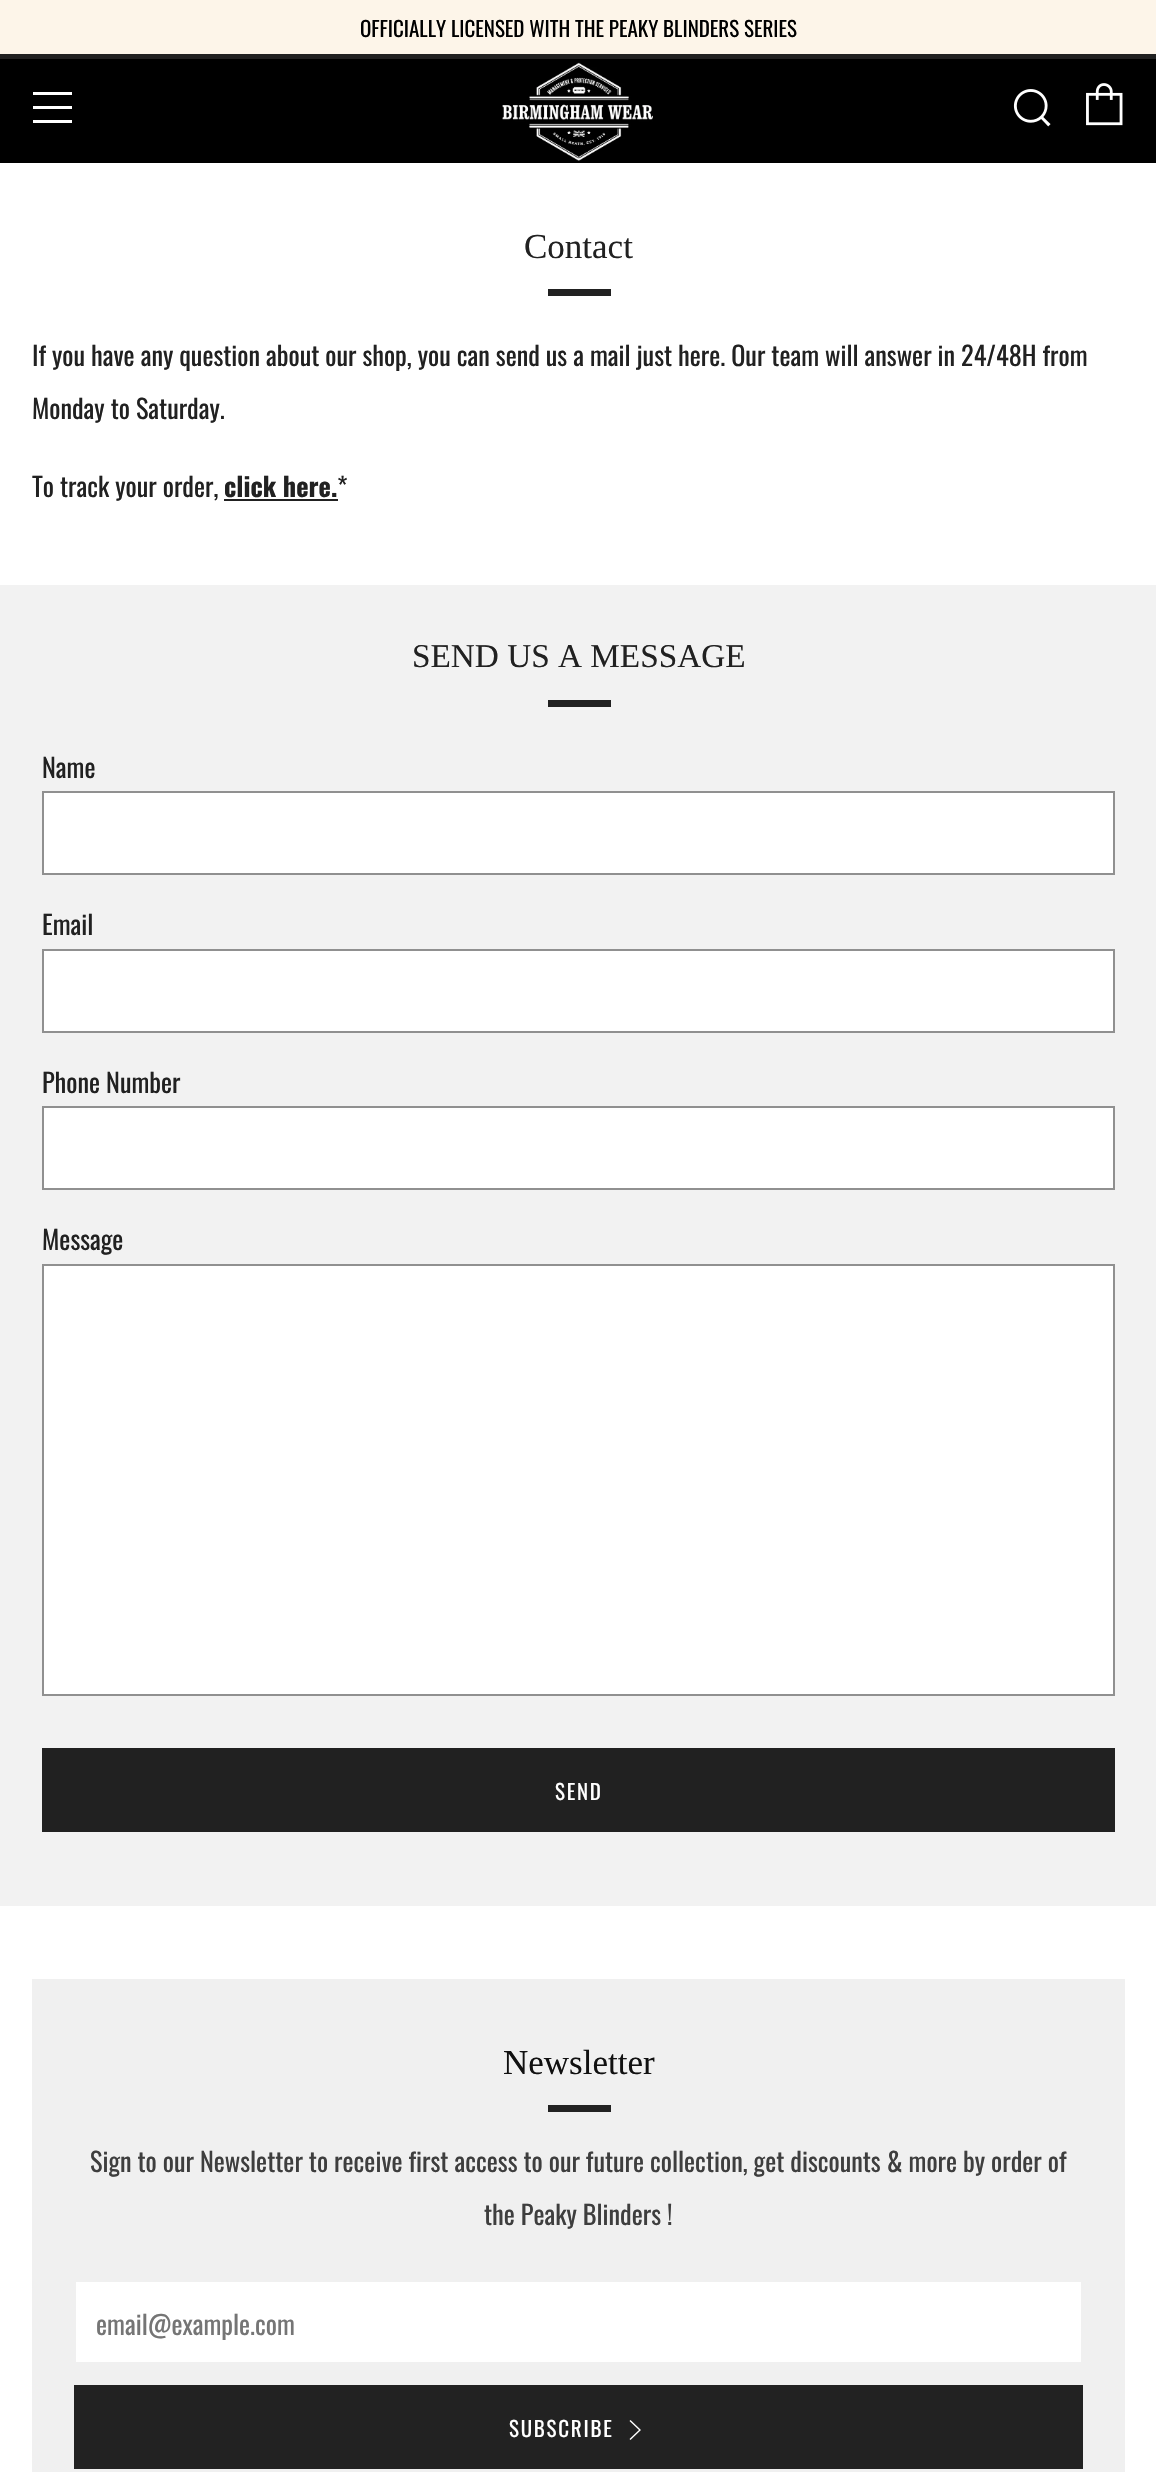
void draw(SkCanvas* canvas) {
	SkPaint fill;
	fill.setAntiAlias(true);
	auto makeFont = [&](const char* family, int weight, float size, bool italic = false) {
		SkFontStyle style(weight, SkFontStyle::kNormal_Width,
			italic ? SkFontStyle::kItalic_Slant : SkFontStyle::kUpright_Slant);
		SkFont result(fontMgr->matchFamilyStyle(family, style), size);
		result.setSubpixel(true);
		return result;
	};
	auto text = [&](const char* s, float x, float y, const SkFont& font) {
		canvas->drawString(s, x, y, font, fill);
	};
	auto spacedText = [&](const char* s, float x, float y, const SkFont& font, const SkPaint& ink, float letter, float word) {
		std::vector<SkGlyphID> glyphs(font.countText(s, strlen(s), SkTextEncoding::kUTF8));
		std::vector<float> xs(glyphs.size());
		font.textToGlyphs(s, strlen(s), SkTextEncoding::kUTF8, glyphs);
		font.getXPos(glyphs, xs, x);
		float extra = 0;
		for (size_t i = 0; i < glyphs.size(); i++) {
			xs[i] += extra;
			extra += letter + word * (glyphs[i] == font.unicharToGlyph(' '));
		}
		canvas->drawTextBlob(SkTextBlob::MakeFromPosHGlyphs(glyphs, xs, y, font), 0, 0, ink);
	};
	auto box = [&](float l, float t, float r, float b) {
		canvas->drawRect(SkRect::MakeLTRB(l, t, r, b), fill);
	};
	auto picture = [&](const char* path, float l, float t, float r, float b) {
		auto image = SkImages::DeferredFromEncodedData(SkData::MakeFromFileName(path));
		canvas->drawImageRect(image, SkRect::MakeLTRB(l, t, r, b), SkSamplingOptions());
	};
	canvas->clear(0xFFFFFFFF);
	fill.setColor(0xFFFDF5E9);
	box(0, 0, 1156, 54);
	fill.setColor(0xFF000000);
	box(0, 59, 1156, 163);
	fill.setColor(0xFF212121);
	box(0, 54, 1156, 59);
	fill.setColor(0xFFFFFFFF);
	canvas->drawPath(SkPathBuilder().moveTo(33, 95).lineTo(72, 95).lineTo(72, 92).lineTo(33, 92).close().moveTo(33, 123).lineTo(72, 123).lineTo(72, 120).lineTo(33, 120).close().moveTo(33, 109).lineTo(72, 109).lineTo(72, 106).lineTo(33, 106).close().detach(), fill);
	picture("image0.png", 502, 62, 653, 161);
	picture("image1.png", 1013, 89, 1051, 127);
	picture("image2.png", 1086, 83, 1123, 126);
	fill.setColor(0xFF212121);
	box(548, 289, 611, 296);
	box(224, 499, 338, 501);
	fill.setColor(0xFFF2F2F2);
	box(0, 585, 1156, 1906);
	fill.setColor(0xFF212121);
	box(548, 700, 611, 707);
	fill.setColor(0xFFFFFFFF);
	canvas->drawRect(SkRect::MakeLTRB(43, 792, 1114, 874), fill);
	fill.setStyle(SkPaint::kStroke_Style);
	fill.setStrokeWidth(2);
	fill.setColor(0xFF909090);
	canvas->drawRect(SkRect::MakeLTRB(43, 792, 1114, 874), fill);
	fill.setStyle(SkPaint::kFill_Style);
	fill.setColor(0xFFFFFFFF);
	canvas->drawRect(SkRect::MakeLTRB(43, 950, 1114, 1032), fill);
	fill.setStyle(SkPaint::kStroke_Style);
	fill.setColor(0xFF909090);
	canvas->drawRect(SkRect::MakeLTRB(43, 950, 1114, 1032), fill);
	fill.setStyle(SkPaint::kFill_Style);
	fill.setColor(0xFFFFFFFF);
	canvas->drawRect(SkRect::MakeLTRB(43, 1107, 1114, 1189), fill);
	fill.setStyle(SkPaint::kStroke_Style);
	fill.setColor(0xFF909090);
	canvas->drawRect(SkRect::MakeLTRB(43, 1107, 1114, 1189), fill);
	fill.setStyle(SkPaint::kFill_Style);
	fill.setColor(0xFFFFFFFF);
	canvas->drawRect(SkRect::MakeLTRB(43, 1265, 1114, 1695), fill);
	fill.setStyle(SkPaint::kStroke_Style);
	fill.setColor(0xFF909090);
	canvas->drawRect(SkRect::MakeLTRB(43, 1265, 1114, 1695), fill);
	fill.setStyle(SkPaint::kFill_Style);
	fill.setColor(0xFF212121);
	box(42, 1748, 1115, 1832);
	fill.setColor(0xFFF0F0F0);
	box(32, 1979, 1125, 2472);
	fill.setColor(0xFF222222);
	box(548, 2105, 611, 2112);
	fill.setColor(0xFFFFFFFF);
	box(76, 2282, 1081, 2362);
	fill.setColor(0xFF222222);
	box(74, 2385, 1083, 2469);
	fill.setColor(0xFFFFFFFF);
	canvas->drawPath(SkPathBuilder().moveTo(629.5f, 2439).lineTo(630.5f, 2440).lineTo(641, 2430).lineTo(630.5f, 2420).lineTo(629.5f, 2421).lineTo(639, 2430).close().detach(), fill);
	auto font1 = makeFont("Oswald", 400, 21);
	fill.setColor(0xFF000000);
	text("OFFICIALLY LICENSED WITH THE PEAKY BLINDERS SERIES", 360, 37, font1);
	auto font2 = makeFont("Liberation Serif", 400, 35);
	fill.setColor(0xFF212121);
	text("Contact", 524, 258, font2);
	auto font3 = makeFont("Oswald", 400, 26.25f);
	text("If you have any question about our shop, you can send us a mail just here. Our team will answer in 24/48H from", 32, 366, font3);
	text("Monday to Saturday.", 32, 419, font3);
	text("To track your order,", 32, 497, font3);
	auto font4 = makeFont("Oswald", 700, 26.25f);
	text("click here.", 224, 497, font4);
	text("*", 337, 497, font3);
	auto font5 = makeFont("Liberation Serif", 400, 33.25f);
	text("SEND US A MESSAGE", 412, 667, font5);
	text("Name", 42, 778, font3);
	text("Email", 42, 935, font3);
	text("Phone Number", 42, 1093, font3);
	text("Message", 42, 1250, font3);
	fill.setColor(0xFFFFFFFF);
	spacedText("SEND", 555, 1800, font1, fill, 1.75f, 0);
	fill.setColor(0xFF111111);
	text("Newsletter", 503, 2074, font2);
	fill.setColor(0xFF3E3E3E);
	text("Sign to our Newsletter to receive first access to our future collection, get discounts & more by order of", 90, 2172, font3);
	text("the Peaky Blinders !", 484, 2225, font3);
	fill.setColor(0xFF757575);
	text("email@example.com", 96, 2335, font3);
	fill.setColor(0xFFFFFFFF);
	spacedText("SUBSCRIBE", 509, 2437, font1, fill, 1.75f, 0);
}
